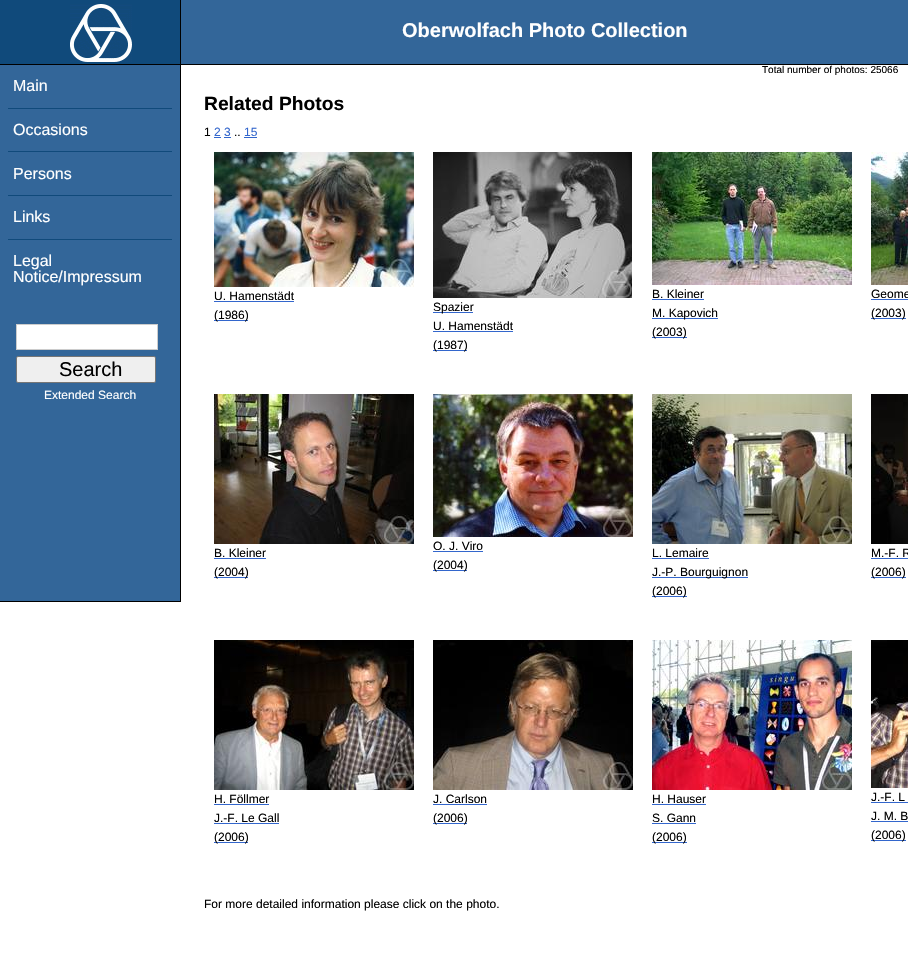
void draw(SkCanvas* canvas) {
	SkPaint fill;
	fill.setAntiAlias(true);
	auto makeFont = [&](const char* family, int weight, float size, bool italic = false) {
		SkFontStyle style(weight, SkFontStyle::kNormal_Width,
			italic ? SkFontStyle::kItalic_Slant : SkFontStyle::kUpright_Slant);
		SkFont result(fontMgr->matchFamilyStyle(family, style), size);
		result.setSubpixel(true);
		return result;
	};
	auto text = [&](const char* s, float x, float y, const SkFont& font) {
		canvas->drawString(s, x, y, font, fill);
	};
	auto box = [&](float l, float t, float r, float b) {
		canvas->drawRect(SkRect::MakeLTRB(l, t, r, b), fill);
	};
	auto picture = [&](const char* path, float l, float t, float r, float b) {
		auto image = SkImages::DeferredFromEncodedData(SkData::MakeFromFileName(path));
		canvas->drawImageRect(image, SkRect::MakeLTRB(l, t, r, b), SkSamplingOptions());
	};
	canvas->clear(0xFFFFFFFF);
	fill.setColor(0xFF336699);
	box(181, 0, 908, 64);
	fill.setColor(0xFF000000);
	box(0, 64, 908, 65);
	fill.setColor(0xFF104A7B);
	box(0, 0, 180, 64);
	fill.setColor(0xFF000000);
	box(180, 0, 181, 64);
	picture("image0.png", 70, 4, 132, 62);
	fill.setColor(0xFF336699);
	box(0, 65, 180, 601);
	fill.setColor(0xFF000000);
	box(180, 65, 181, 602);
	box(0, 601, 181, 602);
	fill.setColor(0xFF104A7B);
	box(8, 108, 172, 109);
	box(8, 151, 172, 152);
	box(8, 195, 172, 196);
	box(8, 239, 172, 240);
	fill.setColor(0xFFFFFFFF);
	canvas->drawRect(SkRect::MakeLTRB(16.5f, 324.5f, 157.5f, 349.5f), fill);
	fill.setStyle(SkPaint::kStroke_Style);
	fill.setStrokeWidth(1);
	fill.setColor(0xFFCCCCCC);
	canvas->drawRect(SkRect::MakeLTRB(16.5f, 324.5f, 157.5f, 349.5f), fill);
	fill.setStyle(SkPaint::kFill_Style);
	fill.setColor(0xFFEFEFEF);
	canvas->drawRoundRect(SkRect::MakeLTRB(16.5f, 356.5f, 155.5f, 382.5f), 1.5f, 1.5f, fill);
	fill.setStyle(SkPaint::kStroke_Style);
	fill.setColor(0xFF767676);
	canvas->drawRoundRect(SkRect::MakeLTRB(16.5f, 356.5f, 155.5f, 382.5f), 1.5f, 1.5f, fill);
	fill.setStyle(SkPaint::kFill_Style);
	fill.setColor(0xFF3366CC);
	box(214, 137, 221, 138);
	box(244, 137, 257, 138);
	box(224, 137, 231, 138);
	picture("image1.png", 214, 152, 414, 287);
	box(214, 301, 294, 302);
	box(214, 320, 248, 321);
	picture("image2.png", 433, 152, 632, 298);
	box(433, 312, 473, 313);
	box(433, 331, 513, 332);
	box(433, 350, 467, 351);
	picture("image3.png", 652, 152, 852, 285);
	box(652, 299, 704, 300);
	box(652, 318, 718, 319);
	box(652, 337, 687, 338);
	picture("image4.png", 871, 152, 908, 285);
	box(871, 299, 908, 300);
	box(871, 318, 906, 319);
	picture("image5.png", 214, 394, 414, 544);
	box(214, 558, 266, 559);
	box(214, 577, 248, 578);
	picture("image6.png", 433, 394, 633, 537);
	box(433, 551, 483, 552);
	box(433, 570, 467, 571);
	picture("image7.png", 652, 394, 852, 544);
	box(652, 558, 709, 559);
	box(652, 577, 748, 578);
	box(652, 596, 687, 597);
	picture("image8.png", 871, 394, 908, 544);
	box(871, 558, 908, 559);
	box(871, 577, 906, 578);
	picture("image9.png", 214, 640, 414, 790);
	box(214, 804, 269, 805);
	box(214, 823, 279, 824);
	box(214, 842, 248, 843);
	picture("image10.png", 433, 640, 633, 790);
	box(433, 804, 487, 805);
	box(433, 823, 467, 824);
	picture("image11.png", 652, 640, 852, 790);
	box(652, 804, 706, 805);
	box(652, 823, 696, 824);
	box(652, 842, 687, 843);
	picture("image12.png", 871, 640, 908, 788);
	box(871, 802, 908, 803);
	box(871, 821, 908, 822);
	box(871, 840, 906, 841);
	auto font1 = makeFont("Liberation Sans", 700, 20);
	fill.setColor(0xFFFFFFFF);
	text("Oberwolfach Photo Collection", 402, 37, font1);
	auto font2 = makeFont("Liberation Sans", 400, 10);
	fill.setColor(0xFF000000);
	text("Total number of photos: 25066", 762, 73, font2);
	auto font3 = makeFont("Liberation Sans", 400, 16);
	fill.setColor(0xFFFFFFFF);
	text("Main", 13, 91, font3);
	text("Occasions", 13, 135, font3);
	text("Persons", 13, 179, font3);
	text("Links", 13, 222, font3);
	text("Legal", 13, 266, font3);
	text("Notice/Impressum", 13, 282, font3);
	auto font4 = makeFont("Liberation Sans", 400, 20);
	fill.setColor(0xFF000000);
	text("Search", 59, 376, font4);
	auto font5 = makeFont("Liberation Sans", 400, 12);
	fill.setColor(0xFFFFFFFF);
	text("Extended Search", 44, 399, font5);
	auto font6 = makeFont("Liberation Sans", 700, 19.25f);
	fill.setColor(0xFF000000);
	text("Related Photos", 204, 110, font6);
	text("1", 204, 136, font5);
	fill.setColor(0xFF3366CC);
	text("2 3", 214, 136, font5);
	fill.setColor(0xFF000000);
	text("..", 234, 136, font5);
	fill.setColor(0xFF3366CC);
	text("15", 244, 136, font5);
	fill.setColor(0xFF000000);
	text("U. Hamenstädt", 214, 300, font5);
	text("(1986)", 214, 319, font5);
	text("Spazier", 433, 311, font5);
	text("U. Hamenstädt", 433, 330, font5);
	text("(1987)", 433, 349, font5);
	text("B. Kleiner", 652, 298, font5);
	text("M. Kapovich", 652, 317, font5);
	text("(2003)", 652, 336, font5);
	text("Geome", 871, 298, font5);
	text("(2003)", 871, 317, font5);
	text("B. Kleiner", 214, 557, font5);
	text("(2004)", 214, 576, font5);
	text("O. J. Viro", 433, 550, font5);
	text("(2004)", 433, 569, font5);
	text("L. Lemaire", 652, 557, font5);
	text("J.-P. Bourguignon", 652, 576, font5);
	text("(2006)", 652, 595, font5);
	text("M.-F. R", 871, 557, font5);
	text("(2006)", 871, 576, font5);
	text("H. Föllmer", 214, 803, font5);
	text("J.-F. Le Gall", 214, 822, font5);
	text("(2006)", 214, 841, font5);
	text("J. Carlson", 433, 803, font5);
	text("(2006)", 433, 822, font5);
	text("H. Hauser", 652, 803, font5);
	text("S. Gann", 652, 822, font5);
	text("(2006)", 652, 841, font5);
	text("J.-F. L", 871, 801, font5);
	text("J. M. B", 871, 820, font5);
	text("(2006)", 871, 839, font5);
	text("For more detailed information please click on the photo.", 204, 908, font5);
}
